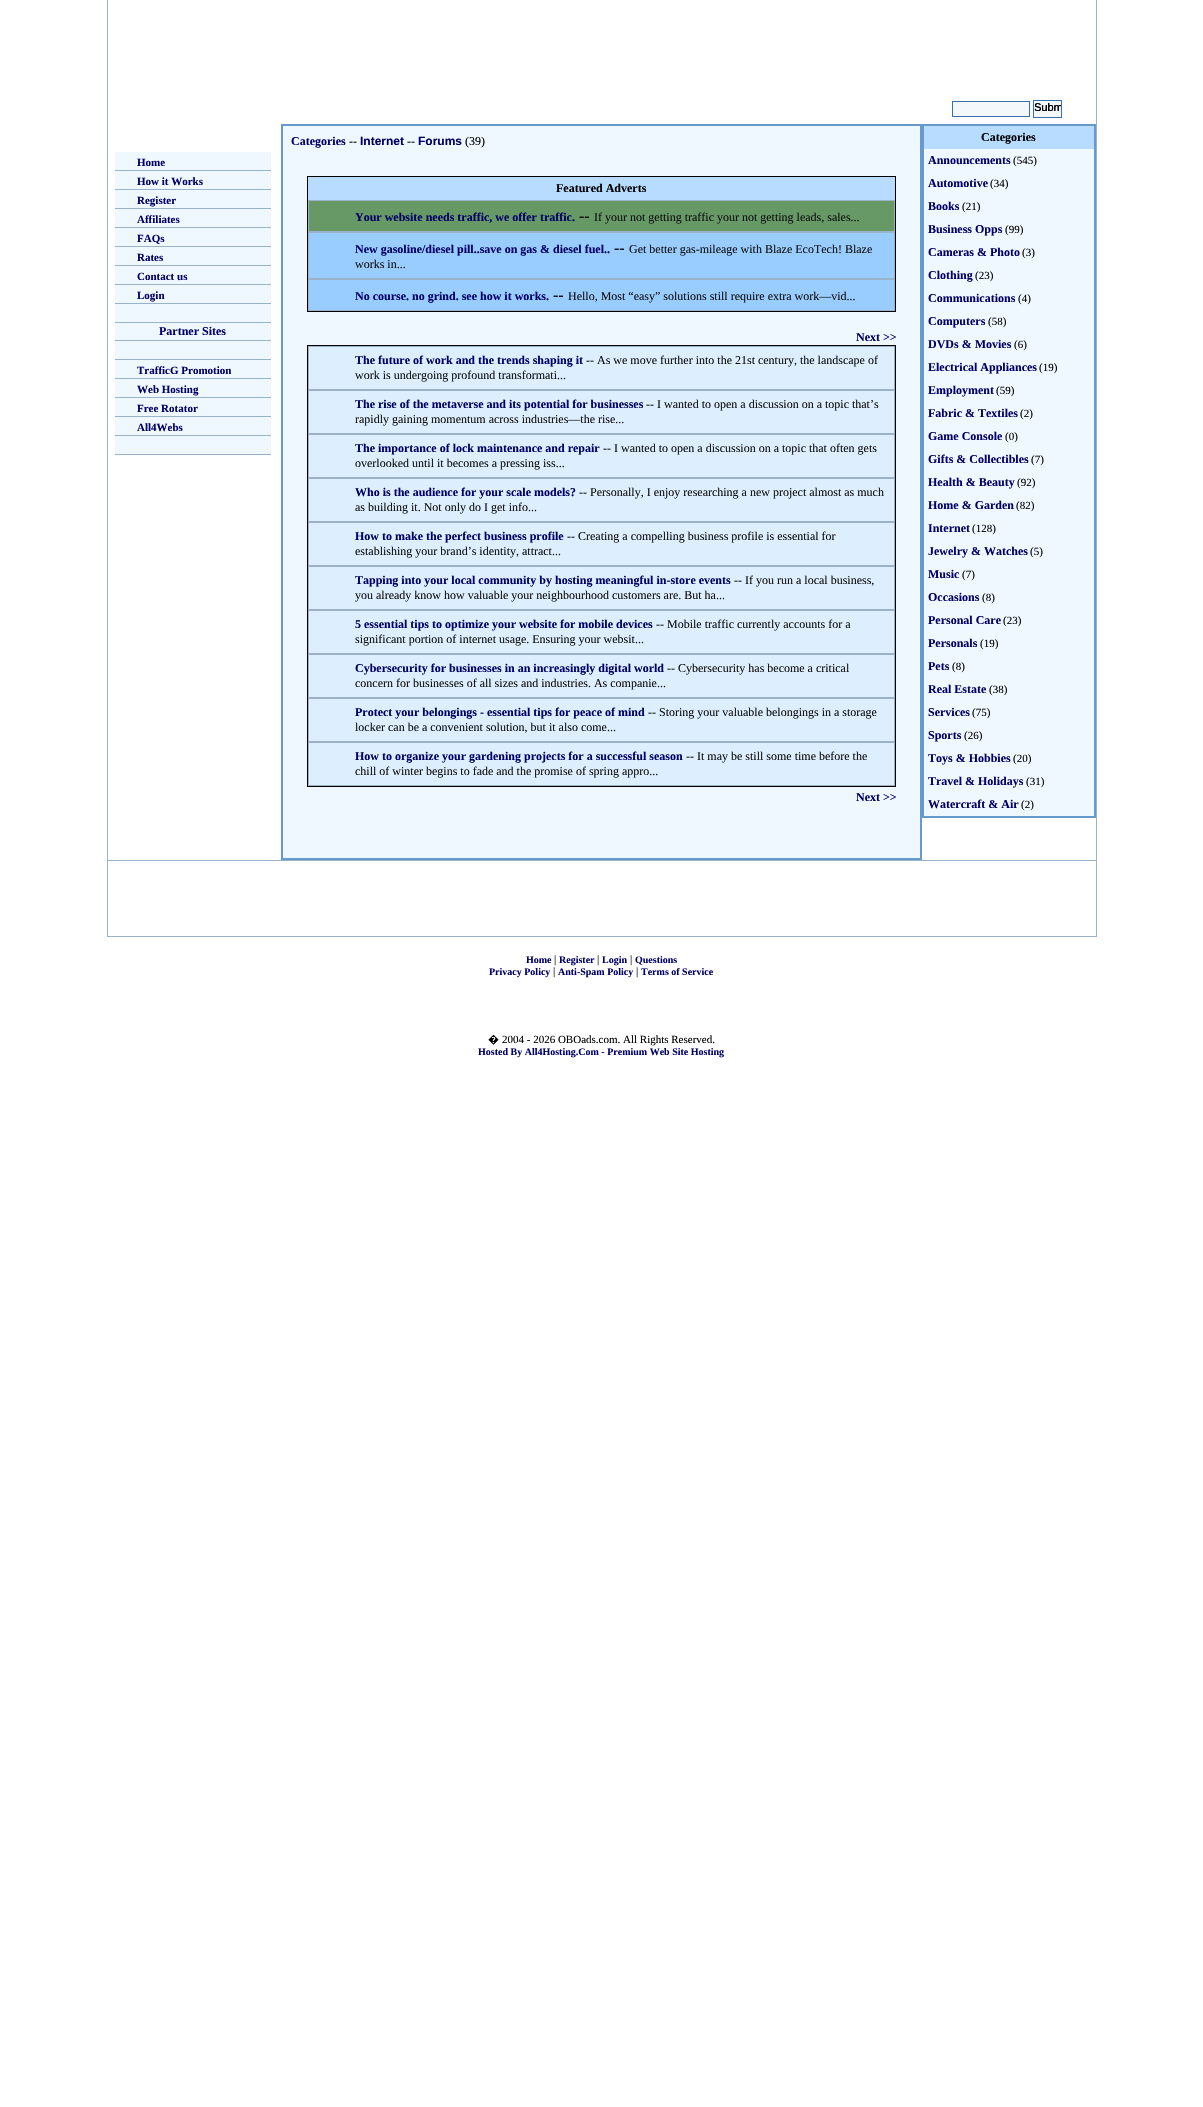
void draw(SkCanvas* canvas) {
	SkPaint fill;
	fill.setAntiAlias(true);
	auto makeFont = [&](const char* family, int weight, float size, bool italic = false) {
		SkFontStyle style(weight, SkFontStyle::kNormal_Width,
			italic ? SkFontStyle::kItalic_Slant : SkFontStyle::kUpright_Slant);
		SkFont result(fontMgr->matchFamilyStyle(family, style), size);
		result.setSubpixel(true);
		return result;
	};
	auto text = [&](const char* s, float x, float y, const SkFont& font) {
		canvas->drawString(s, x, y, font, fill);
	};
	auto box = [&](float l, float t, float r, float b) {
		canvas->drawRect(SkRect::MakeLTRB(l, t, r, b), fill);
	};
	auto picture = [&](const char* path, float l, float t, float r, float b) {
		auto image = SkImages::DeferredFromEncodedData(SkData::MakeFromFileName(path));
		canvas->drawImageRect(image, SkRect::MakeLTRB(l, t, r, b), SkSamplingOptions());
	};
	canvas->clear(0xFFFFFFFF);
	fill.setColor(0xFF9AB3CA);
	box(1096, 0, 1097, 860);
	box(107, 0, 108, 860);
	fill.setColor(0xFFF4F8FB);
	canvas->drawRect(SkRect::MakeLTRB(952.5f, 101.5f, 1029.5f, 116.5f), fill);
	fill.setStyle(SkPaint::kStroke_Style);
	fill.setStrokeWidth(1);
	fill.setColor(0xFF3871A9);
	canvas->drawRect(SkRect::MakeLTRB(952.5f, 101.5f, 1029.5f, 116.5f), fill);
	fill.setStyle(SkPaint::kFill_Style);
	fill.setColor(0xFFF4F8FB);
	canvas->drawRect(SkRect::MakeLTRB(1033.5f, 100.5f, 1061.5f, 117.5f), fill);
	fill.setStyle(SkPaint::kStroke_Style);
	fill.setColor(0xFF3871A9);
	canvas->drawRect(SkRect::MakeLTRB(1033.5f, 100.5f, 1061.5f, 117.5f), fill);
	picture("image0.png", 1034, 103, 1061, 111);
	fill.setStyle(SkPaint::kFill_Style);
	fill.setColor(0xFFF0F8FF);
	box(115, 152, 271, 170);
	fill.setColor(0xFF9AB3CA);
	box(115, 170, 271, 171);
	fill.setColor(0xFFF0F8FF);
	box(115, 171, 271, 189);
	fill.setColor(0xFF9AB3CA);
	box(115, 189, 271, 190);
	fill.setColor(0xFFF0F8FF);
	box(115, 190, 271, 208);
	fill.setColor(0xFF9AB3CA);
	box(115, 208, 271, 209);
	fill.setColor(0xFFF0F8FF);
	box(115, 209, 271, 227);
	fill.setColor(0xFF9AB3CA);
	box(115, 227, 271, 228);
	fill.setColor(0xFFF0F8FF);
	box(115, 228, 271, 246);
	fill.setColor(0xFF9AB3CA);
	box(115, 246, 271, 247);
	fill.setColor(0xFFF0F8FF);
	box(115, 247, 271, 265);
	fill.setColor(0xFF9AB3CA);
	box(115, 265, 271, 266);
	fill.setColor(0xFFF0F8FF);
	box(115, 266, 271, 284);
	fill.setColor(0xFF9AB3CA);
	box(115, 284, 271, 285);
	fill.setColor(0xFFF0F8FF);
	box(115, 285, 271, 303);
	fill.setColor(0xFF9AB3CA);
	box(115, 303, 271, 304);
	fill.setColor(0xFFF0F8FF);
	box(115, 304, 271, 322);
	fill.setColor(0xFF9AB3CA);
	box(115, 322, 271, 323);
	fill.setColor(0xFFF0F8FF);
	box(115, 323, 271, 340);
	fill.setColor(0xFF9AB3CA);
	box(115, 340, 271, 341);
	fill.setColor(0xFFF0F8FF);
	box(115, 341, 271, 359);
	fill.setColor(0xFF9AB3CA);
	box(115, 359, 271, 360);
	fill.setColor(0xFFF0F8FF);
	box(115, 360, 271, 378);
	fill.setColor(0xFF9AB3CA);
	box(115, 378, 271, 379);
	fill.setColor(0xFFF0F8FF);
	box(115, 379, 271, 397);
	fill.setColor(0xFF9AB3CA);
	box(115, 397, 271, 398);
	fill.setColor(0xFFF0F8FF);
	box(115, 398, 271, 416);
	fill.setColor(0xFF9AB3CA);
	box(115, 416, 271, 417);
	fill.setColor(0xFFF0F8FF);
	box(115, 417, 271, 435);
	fill.setColor(0xFF9AB3CA);
	box(115, 435, 271, 436);
	fill.setColor(0xFFF0F8FF);
	box(115, 436, 271, 454);
	fill.setColor(0xFF9AB3CA);
	box(115, 454, 271, 455);
	fill.setColor(0xFFF0F8FF);
	canvas->drawRect(SkRect::MakeLTRB(282, 125, 921, 859), fill);
	fill.setStyle(SkPaint::kStroke_Style);
	fill.setStrokeWidth(2);
	fill.setColor(0xFF6699CC);
	canvas->drawRect(SkRect::MakeLTRB(282, 125, 921, 859), fill);
	fill.setStrokeWidth(1);
	fill.setColor(0xFF000000);
	canvas->drawRect(SkRect::MakeLTRB(307.5f, 176.5f, 895.5f, 311.5f), fill);
	fill.setStyle(SkPaint::kFill_Style);
	fill.setColor(0xFFB7DCFF);
	box(308, 177, 895, 200);
	fill.setColor(0xFF669966);
	canvas->drawRect(SkRect::MakeLTRB(308.5f, 200.5f, 894.5f, 231.5f), fill);
	fill.setStyle(SkPaint::kStroke_Style);
	fill.setColor(0xFF9AB3CA);
	canvas->drawRect(SkRect::MakeLTRB(308.5f, 200.5f, 894.5f, 231.5f), fill);
	fill.setStyle(SkPaint::kFill_Style);
	fill.setColor(0xFF99CCFF);
	canvas->drawRect(SkRect::MakeLTRB(308.5f, 232.5f, 894.5f, 278.5f), fill);
	fill.setStyle(SkPaint::kStroke_Style);
	fill.setColor(0xFF9AB3CA);
	canvas->drawRect(SkRect::MakeLTRB(308.5f, 232.5f, 894.5f, 278.5f), fill);
	fill.setStyle(SkPaint::kFill_Style);
	fill.setColor(0xFF99CCFF);
	canvas->drawRect(SkRect::MakeLTRB(308.5f, 279.5f, 894.5f, 310.5f), fill);
	fill.setStyle(SkPaint::kStroke_Style);
	fill.setColor(0xFF9AB3CA);
	canvas->drawRect(SkRect::MakeLTRB(308.5f, 279.5f, 894.5f, 310.5f), fill);
	fill.setStyle(SkPaint::kFill_Style);
	fill.setColor(0xFFDDEFFF);
	box(309, 347, 894, 785);
	fill.setStyle(SkPaint::kStroke_Style);
	fill.setColor(0xFF000000);
	canvas->drawRect(SkRect::MakeLTRB(307.5f, 345.5f, 895.5f, 786.5f), fill);
	fill.setColor(0xFF9AB3CA);
	canvas->drawRect(SkRect::MakeLTRB(308.5f, 346.5f, 894.5f, 389.5f), fill);
	canvas->drawRect(SkRect::MakeLTRB(308.5f, 390.5f, 894.5f, 433.5f), fill);
	canvas->drawRect(SkRect::MakeLTRB(308.5f, 434.5f, 894.5f, 477.5f), fill);
	canvas->drawRect(SkRect::MakeLTRB(308.5f, 478.5f, 894.5f, 521.5f), fill);
	canvas->drawRect(SkRect::MakeLTRB(308.5f, 522.5f, 894.5f, 565.5f), fill);
	canvas->drawRect(SkRect::MakeLTRB(308.5f, 566.5f, 894.5f, 609.5f), fill);
	canvas->drawRect(SkRect::MakeLTRB(308.5f, 610.5f, 894.5f, 653.5f), fill);
	canvas->drawRect(SkRect::MakeLTRB(308.5f, 654.5f, 894.5f, 697.5f), fill);
	canvas->drawRect(SkRect::MakeLTRB(308.5f, 698.5f, 894.5f, 741.5f), fill);
	canvas->drawRect(SkRect::MakeLTRB(308.5f, 742.5f, 894.5f, 785.5f), fill);
	fill.setStyle(SkPaint::kFill_Style);
	fill.setColor(0xFFF0F8FF);
	box(924, 149, 1094, 816);
	fill.setStyle(SkPaint::kStroke_Style);
	fill.setStrokeWidth(2);
	fill.setColor(0xFF6699CC);
	canvas->drawRect(SkRect::MakeLTRB(923, 125, 1095, 817), fill);
	fill.setStyle(SkPaint::kFill_Style);
	fill.setColor(0xFFB7DCFF);
	box(924, 126, 1094, 149);
	fill.setStyle(SkPaint::kStroke_Style);
	fill.setStrokeWidth(1);
	fill.setColor(0xFF9AB3CA);
	canvas->drawRect(SkRect::MakeLTRB(107.5f, 860.5f, 1096.5f, 936.5f), fill);
	canvas->save();
	canvas->clipRect(SkRect::MakeLTRB(1034, 101, 1061, 117));
	auto font1 = makeFont("Liberation Sans", 400, 11);
	fill.setStyle(SkPaint::kFill_Style);
	fill.setColor(0xFF000000);
	text("Subm", 1034, 111, font1);
	canvas->restore();
	auto font2 = makeFont("Liberation Serif", 700, 11);
	fill.setColor(0xFF000066);
	text("Home", 137, 166, font2);
	text("How it Works", 137, 185, font2);
	text("Register", 137, 204, font2);
	text("Affiliates", 137, 223, font2);
	text("FAQs", 137, 242, font2);
	text("Rates", 137, 261, font2);
	text("Contact us", 137, 280, font2);
	text("Login", 137, 299, font2);
	auto font3 = makeFont("Liberation Serif", 700, 12);
	text("Partner Sites", 159, 335, font3);
	text("TrafficG Promotion", 137, 374, font2);
	text("Web Hosting", 137, 393, font2);
	text("Free Rotator", 137, 412, font2);
	text("All4Webs", 137, 431, font2);
	text("Categories", 291, 145, font3);
	auto font4 = makeFont("Liberation Serif", 400, 12);
	fill.setColor(0xFF000000);
	text("--", 349, 145, font4);
	auto font5 = makeFont("Liberation Sans", 700, 12);
	fill.setColor(0xFF000066);
	text("Internet", 360, 145, font5);
	fill.setColor(0xFF000000);
	text("--", 407, 145, font4);
	fill.setColor(0xFF000066);
	text("Forums", 418, 145, font5);
	fill.setColor(0xFF000000);
	text("(39)", 465, 145, font4);
	text("Featured Adverts", 556, 192, font3);
	fill.setColor(0xFF000066);
	text("Your website needs traffic, we offer traffic.", 355, 221, font3);
	auto font6 = makeFont("Liberation Serif", 400, 16);
	fill.setColor(0xFF000000);
	text("--", 579, 221, font6);
	fill.setColor(0xFF111111);
	text("If your not getting traffic your not getting leads, sales...", 594, 221, font4);
	fill.setColor(0xFF000066);
	text("New gasoline/diesel pill..save on gas & diesel fuel..", 355, 253, font3);
	fill.setColor(0xFF000000);
	text("--", 614, 253, font6);
	fill.setColor(0xFF111111);
	text("Get better gas-mileage with Blaze EcoTech! Blaze", 629, 253, font4);
	text("works in...", 355, 268, font4);
	fill.setColor(0xFF000066);
	text("No course. no grind. see how it works.", 355, 300, font3);
	fill.setColor(0xFF000000);
	text("--", 553, 300, font6);
	fill.setColor(0xFF111111);
	text("Hello, Most “easy” solutions still require extra work—vid...", 568, 300, font4);
	fill.setColor(0xFF000066);
	text("Next >>", 856, 341, font3);
	text("The future of work and the trends shaping it", 355, 364, font3);
	fill.setColor(0xFF111111);
	text("-- As we move further into the 21st century, the landscape of", 586, 364, font4);
	text("work is undergoing profound transformati...", 355, 379, font4);
	fill.setColor(0xFF000066);
	text("The rise of the metaverse and its potential for businesses", 355, 408, font3);
	fill.setColor(0xFF111111);
	text("-- I wanted to open a discussion on a topic that’s", 646, 408, font4);
	text("rapidly gaining momentum across industries—the rise...", 355, 423, font4);
	fill.setColor(0xFF000066);
	text("The importance of lock maintenance and repair", 355, 452, font3);
	fill.setColor(0xFF111111);
	text("-- I wanted to open a discussion on a topic that often gets", 603, 452, font4);
	text("overlooked until it becomes a pressing iss...", 355, 467, font4);
	fill.setColor(0xFF000066);
	text("Who is the audience for your scale models?", 355, 496, font3);
	fill.setColor(0xFF111111);
	text("-- Personally, I enjoy researching a new project almost as much", 579, 496, font4);
	text("as building it. Not only do I get info...", 355, 511, font4);
	fill.setColor(0xFF000066);
	text("How to make the perfect business profile", 355, 540, font3);
	fill.setColor(0xFF111111);
	text("-- Creating a compelling business profile is essential for", 567, 540, font4);
	text("establishing your brand’s identity, attract...", 355, 555, font4);
	fill.setColor(0xFF000066);
	text("Tapping into your local community by hosting meaningful in-store events", 355, 584, font3);
	fill.setColor(0xFF111111);
	text("-- If you run a local business,", 734, 584, font4);
	text("you already know how valuable your neighbourhood customers are. But ha...", 355, 599, font4);
	fill.setColor(0xFF000066);
	text("5 essential tips to optimize your website for mobile devices", 355, 628, font3);
	fill.setColor(0xFF111111);
	text("-- Mobile traffic currently accounts for a", 656, 628, font4);
	text("significant portion of internet usage. Ensuring your websit...", 355, 643, font4);
	fill.setColor(0xFF000066);
	text("Cybersecurity for businesses in an increasingly digital world", 355, 672, font3);
	fill.setColor(0xFF111111);
	text("-- Cybersecurity has become a critical", 667, 672, font4);
	text("concern for businesses of all sizes and industries. As companie...", 355, 687, font4);
	fill.setColor(0xFF000066);
	text("Protect your belongings - essential tips for peace of mind", 355, 716, font3);
	fill.setColor(0xFF111111);
	text("-- Storing your valuable belongings in a storage", 648, 716, font4);
	text("locker can be a convenient solution, but it also come...", 355, 731, font4);
	fill.setColor(0xFF000066);
	text("How to organize your gardening projects for a successful season", 355, 760, font3);
	fill.setColor(0xFF111111);
	text("-- It may be still some time before the", 686, 760, font4);
	text("chill of winter begins to fade and the promise of spring appro...", 355, 775, font4);
	fill.setColor(0xFF000066);
	text("Next >>", 856, 801, font3);
	fill.setColor(0xFF000000);
	text("Categories", 981, 141, font3);
	fill.setColor(0xFF000066);
	text("Announcements", 928, 164, font3);
	auto font7 = makeFont("Liberation Serif", 400, 11);
	fill.setColor(0xFF000000);
	text("(545)", 1013, 164, font7);
	fill.setColor(0xFF000066);
	text("Automotive", 928, 187, font3);
	fill.setColor(0xFF000000);
	text("(34)", 990, 187, font7);
	fill.setColor(0xFF000066);
	text("Books", 928, 210, font3);
	fill.setColor(0xFF000000);
	text("(21)", 962, 210, font7);
	fill.setColor(0xFF000066);
	text("Business Opps", 928, 233, font3);
	fill.setColor(0xFF000000);
	text("(99)", 1005, 233, font7);
	fill.setColor(0xFF000066);
	text("Cameras & Photo", 928, 256, font3);
	fill.setColor(0xFF000000);
	text("(3)", 1022, 256, font7);
	fill.setColor(0xFF000066);
	text("Clothing", 928, 279, font3);
	fill.setColor(0xFF000000);
	text("(23)", 975, 279, font7);
	fill.setColor(0xFF000066);
	text("Communications", 928, 302, font3);
	fill.setColor(0xFF000000);
	text("(4)", 1018, 302, font7);
	fill.setColor(0xFF000066);
	text("Computers", 928, 325, font3);
	fill.setColor(0xFF000000);
	text("(58)", 988, 325, font7);
	fill.setColor(0xFF000066);
	text("DVDs & Movies", 928, 348, font3);
	fill.setColor(0xFF000000);
	text("(6)", 1014, 348, font7);
	fill.setColor(0xFF000066);
	text("Electrical Appliances", 928, 371, font3);
	fill.setColor(0xFF000000);
	text("(19)", 1039, 371, font7);
	fill.setColor(0xFF000066);
	text("Employment", 928, 394, font3);
	fill.setColor(0xFF000000);
	text("(59)", 996, 394, font7);
	fill.setColor(0xFF000066);
	text("Fabric & Textiles", 928, 417, font3);
	fill.setColor(0xFF000000);
	text("(2)", 1020, 417, font7);
	fill.setColor(0xFF000066);
	text("Game Console", 928, 440, font3);
	fill.setColor(0xFF000000);
	text("(0)", 1005, 440, font7);
	fill.setColor(0xFF000066);
	text("Gifts & Collectibles", 928, 463, font3);
	fill.setColor(0xFF000000);
	text("(7)", 1031, 463, font7);
	fill.setColor(0xFF000066);
	text("Health & Beauty", 928, 486, font3);
	fill.setColor(0xFF000000);
	text("(92)", 1017, 486, font7);
	fill.setColor(0xFF000066);
	text("Home & Garden", 928, 509, font3);
	fill.setColor(0xFF000000);
	text("(82)", 1016, 509, font7);
	fill.setColor(0xFF000066);
	text("Internet", 928, 532, font3);
	fill.setColor(0xFF000000);
	text("(128)", 972, 532, font7);
	fill.setColor(0xFF000066);
	text("Jewelry & Watches", 928, 555, font3);
	fill.setColor(0xFF000000);
	text("(5)", 1030, 555, font7);
	fill.setColor(0xFF000066);
	text("Music", 928, 578, font3);
	fill.setColor(0xFF000000);
	text("(7)", 962, 578, font7);
	fill.setColor(0xFF000066);
	text("Occasions", 928, 601, font3);
	fill.setColor(0xFF000000);
	text("(8)", 982, 601, font7);
	fill.setColor(0xFF000066);
	text("Personal Care", 928, 624, font3);
	fill.setColor(0xFF000000);
	text("(23)", 1003, 624, font7);
	fill.setColor(0xFF000066);
	text("Personals", 928, 647, font3);
	fill.setColor(0xFF000000);
	text("(19)", 980, 647, font7);
	fill.setColor(0xFF000066);
	text("Pets", 928, 670, font3);
	fill.setColor(0xFF000000);
	text("(8)", 952, 670, font7);
	fill.setColor(0xFF000066);
	text("Real Estate", 928, 693, font3);
	fill.setColor(0xFF000000);
	text("(38)", 989, 693, font7);
	fill.setColor(0xFF000066);
	text("Services", 928, 716, font3);
	fill.setColor(0xFF000000);
	text("(75)", 972, 716, font7);
	fill.setColor(0xFF000066);
	text("Sports", 928, 739, font3);
	fill.setColor(0xFF000000);
	text("(26)", 964, 739, font7);
	fill.setColor(0xFF000066);
	text("Toys & Hobbies", 928, 762, font3);
	fill.setColor(0xFF000000);
	text("(20)", 1013, 762, font7);
	fill.setColor(0xFF000066);
	text("Travel & Holidays", 928, 785, font3);
	fill.setColor(0xFF000000);
	text("(31)", 1026, 785, font7);
	fill.setColor(0xFF000066);
	text("Watercraft & Air", 928, 808, font3);
	fill.setColor(0xFF000000);
	text("(2)", 1021, 808, font7);
	auto font8 = makeFont("Liberation Serif", 700, 10);
	fill.setColor(0xFF000066);
	text("Home", 526, 963, font8);
	fill.setColor(0xFF000000);
	text("|", 554, 963, font7);
	fill.setColor(0xFF000066);
	text("Register", 559, 963, font8);
	fill.setColor(0xFF000000);
	text("|", 597, 963, font7);
	fill.setColor(0xFF000066);
	text("Login", 602, 963, font8);
	fill.setColor(0xFF000000);
	text("|", 630, 963, font7);
	fill.setColor(0xFF000066);
	text("Questions", 635, 963, font8);
	text("Privacy Policy", 489, 975, font8);
	fill.setColor(0xFF000000);
	text("|", 553, 975, font7);
	fill.setColor(0xFF000066);
	text("Anti-Spam Policy", 558, 975, font8);
	fill.setColor(0xFF000000);
	text("|", 636, 975, font7);
	fill.setColor(0xFF000066);
	text("Terms of Service", 641, 975, font8);
	auto font9 = makeFont("Noto Sans", 400, 11);
	fill.setColor(0xFF000000);
	text("�", 488, 1043, font9);
	text("2004 - 2026 OBOads.com. All Rights Reserved.", 502, 1043, font7);
	fill.setColor(0xFF000066);
	text("Hosted By All4Hosting.Com - Premium Web Site Hosting", 478, 1055, font8);
}
